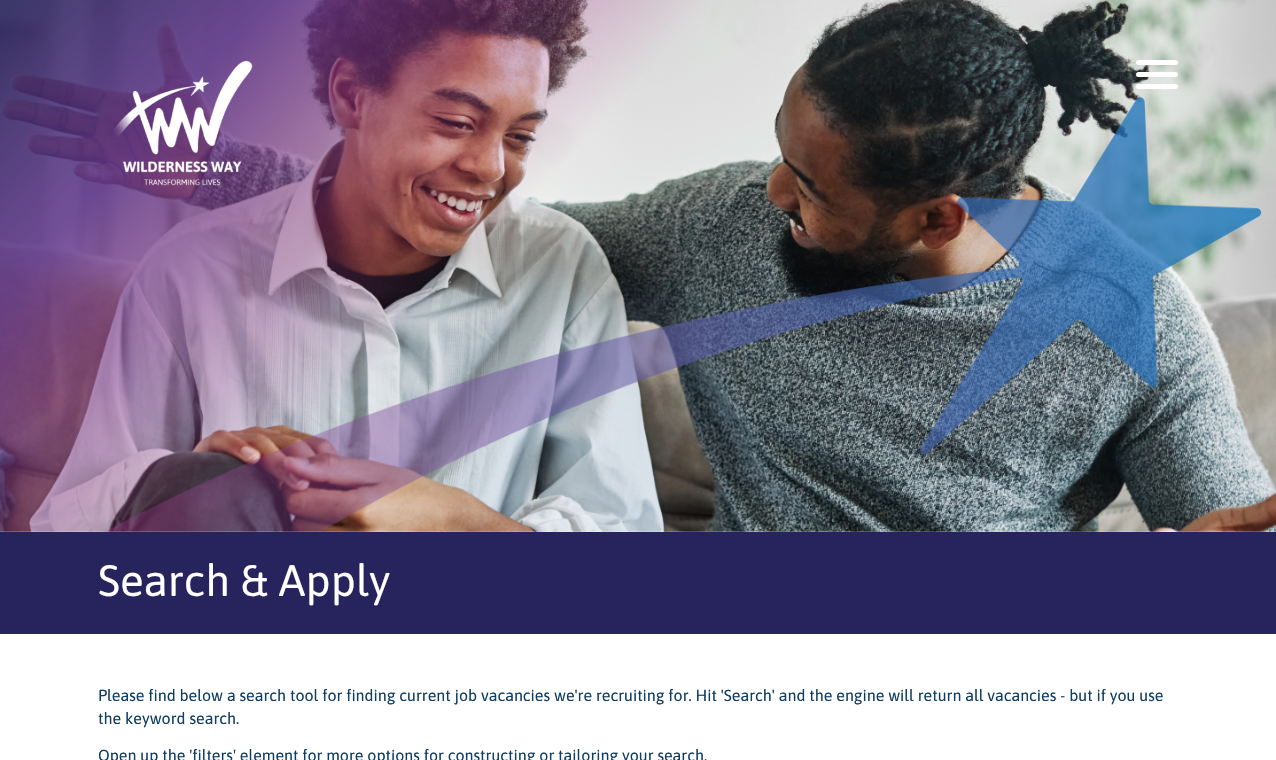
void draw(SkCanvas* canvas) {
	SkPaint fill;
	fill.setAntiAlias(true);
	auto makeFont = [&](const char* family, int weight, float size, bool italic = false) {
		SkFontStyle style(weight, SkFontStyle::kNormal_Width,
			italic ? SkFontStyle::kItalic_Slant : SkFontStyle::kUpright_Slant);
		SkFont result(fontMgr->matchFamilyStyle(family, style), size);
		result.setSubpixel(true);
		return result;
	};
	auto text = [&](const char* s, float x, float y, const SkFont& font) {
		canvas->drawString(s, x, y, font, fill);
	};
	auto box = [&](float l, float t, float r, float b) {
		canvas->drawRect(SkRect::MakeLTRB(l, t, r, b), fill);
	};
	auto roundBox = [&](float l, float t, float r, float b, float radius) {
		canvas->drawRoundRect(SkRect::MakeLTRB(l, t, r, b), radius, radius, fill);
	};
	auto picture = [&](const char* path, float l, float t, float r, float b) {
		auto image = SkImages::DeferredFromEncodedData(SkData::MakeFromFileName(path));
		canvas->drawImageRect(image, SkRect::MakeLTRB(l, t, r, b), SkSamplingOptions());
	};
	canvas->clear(0xFFFFFFFF);
	picture("image1.png", 0, 0, 1276, 532);
	picture("image0.png", 114, 60, 253, 186);
	fill.setColor(0xFFFFFFFF);
	roundBox(1136, 60, 1178, 65, 2.5f);
	roundBox(1136, 72, 1178, 77, 2.5f);
	roundBox(1136, 84, 1178, 89, 2.5f);
	fill.setColor(0xFF27235D);
	box(0, 532, 1276, 634);
	auto font1 = makeFont("Asap", 400, 44);
	fill.setColor(0xFFFFFFFF);
	text("Search & Apply", 98, 596, font1);
	auto font2 = makeFont("Asap", 400, 16);
	fill.setColor(0xFF0F3C62);
	text("Please find below a search tool for finding current job vacancies we're recruiting for. Hit 'Search' and the engine will return all vacancies - but if you use", 98, 701, font2);
	text("the keyword search.", 98, 724, font2);
	text("Open up the 'filters' element for more options for constructing or tailoring your search.", 98, 761, font2);
}
